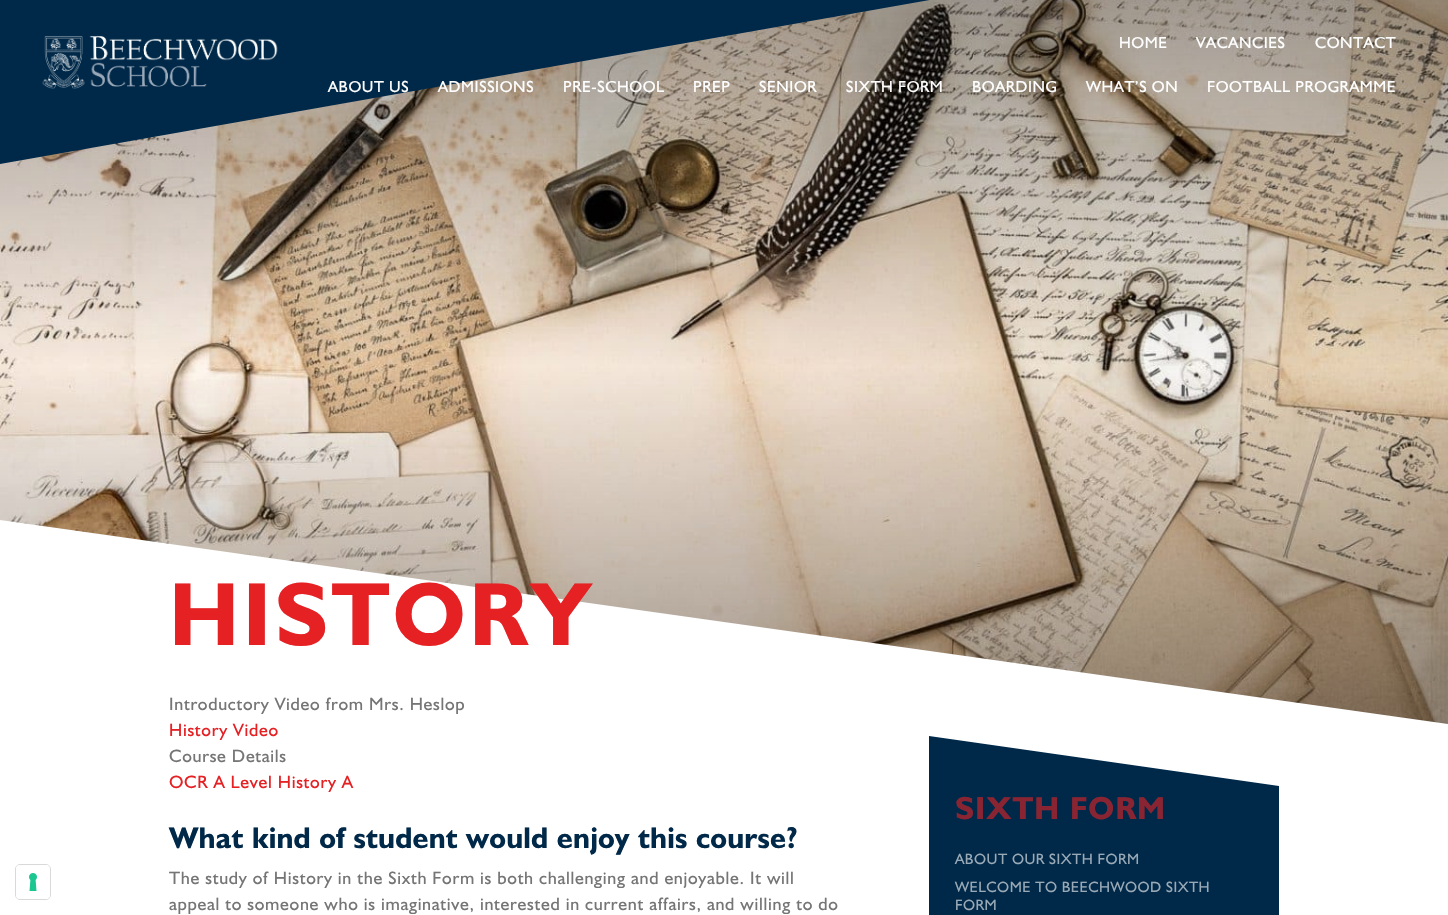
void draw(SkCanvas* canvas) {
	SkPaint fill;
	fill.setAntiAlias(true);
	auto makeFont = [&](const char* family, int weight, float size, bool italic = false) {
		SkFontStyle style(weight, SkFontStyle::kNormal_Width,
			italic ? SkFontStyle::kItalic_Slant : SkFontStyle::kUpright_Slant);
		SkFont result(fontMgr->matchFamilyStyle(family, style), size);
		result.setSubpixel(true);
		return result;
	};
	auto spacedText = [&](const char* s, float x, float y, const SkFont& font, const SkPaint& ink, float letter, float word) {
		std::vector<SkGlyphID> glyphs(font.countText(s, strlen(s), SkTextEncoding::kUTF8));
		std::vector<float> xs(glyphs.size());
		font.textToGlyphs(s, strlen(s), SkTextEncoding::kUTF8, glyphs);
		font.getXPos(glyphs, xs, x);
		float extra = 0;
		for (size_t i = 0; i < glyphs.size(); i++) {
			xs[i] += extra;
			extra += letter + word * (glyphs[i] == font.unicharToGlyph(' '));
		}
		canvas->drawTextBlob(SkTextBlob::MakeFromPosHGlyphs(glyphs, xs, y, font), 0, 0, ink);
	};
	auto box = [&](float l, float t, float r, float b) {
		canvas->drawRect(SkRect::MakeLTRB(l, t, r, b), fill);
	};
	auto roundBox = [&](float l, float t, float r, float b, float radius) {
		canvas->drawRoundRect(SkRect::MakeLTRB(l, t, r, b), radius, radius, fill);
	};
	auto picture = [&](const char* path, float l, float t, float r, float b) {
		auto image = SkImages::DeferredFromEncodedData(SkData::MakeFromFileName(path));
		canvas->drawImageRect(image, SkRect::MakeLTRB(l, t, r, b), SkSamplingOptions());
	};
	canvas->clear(0xFFFFFFFF);
	picture("image2.png", 0, 0, 1448, 724);
	fill.setColor(0xFF002848);
	canvas->drawPath(SkPathBuilder().moveTo(0, -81).lineTo(941, -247).lineTo(941, -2).lineTo(0, 164).close().detach(), fill);
	picture("image0.png", 42, 35, 278, 89);
	fill.setStyle(SkPaint::kStroke_Style);
	fill.setStrokeWidth(1);
	fill.setColor(0xFFD9D9D9);
	canvas->drawRoundRect(SkRect::MakeLTRB(15.5f, 864.5f, 50.5f, 899.5f), 4.5f, 4.5f, fill);
	fill.setStyle(SkPaint::kFill_Style);
	fill.setColor(0xFFFFFFFF);
	roundBox(16, 865, 50, 899, 4);
	picture("image1.png", 29, 873, 37, 891);
	canvas->save();
	canvas->clipRect(SkRect::MakeLTRB(0, 0, 1448, 732));
	canvas->drawPath(SkPathBuilder().moveTo(0, 520).lineTo(1448, 724).lineTo(1448, 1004).lineTo(0, 800).close().detach(), fill);
	canvas->restore();
	fill.setColor(0xFF002848);
	box(929, 736, 1279, 915);
	fill.setColor(0xFFFFFFFF);
	canvas->drawPath(SkPathBuilder().moveTo(929, 656).lineTo(1279, 706).lineTo(1279, 786).lineTo(929, 736).close().detach(), fill);
	auto font1 = makeFont("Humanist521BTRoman", 400, 16);
	spacedText("HOME", 1119, 48, font1, fill, 0.6f, 0);
	spacedText("VACANCIES", 1196, 48, font1, fill, 0.6f, 0);
	spacedText("CONTACT", 1315, 48, font1, fill, 0.6f, 0);
	spacedText("ABOUT US", 328, 92, font1, fill, 0.6f, 0);
	spacedText("ADMISSIONS", 438, 92, font1, fill, 0.6f, 0);
	spacedText("PRE-SCHOOL", 563, 92, font1, fill, 0.6f, 0);
	spacedText("PREP", 693, 92, font1, fill, 0.6f, 0);
	spacedText("SENIOR", 759, 92, font1, fill, 0.6f, 0);
	spacedText("SIXTH FORM", 846, 92, font1, fill, 0.6f, 0);
	spacedText("BOARDING", 972, 92, font1, fill, 0.6f, 0);
	spacedText("WHAT’S ON", 1086, 92, font1, fill, 0.6f, 0);
	spacedText("FOOTBALL PROGRAMME", 1207, 92, font1, fill, 0.6f, 0);
	auto font2 = makeFont("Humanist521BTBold", 400, 90);
	fill.setColor(0xFFE52124);
	spacedText("HISTORY", 169, 645, font2, fill, 3.25f, 0);
	auto font3 = makeFont("Humanist521BTRoman", 400, 18);
	fill.setColor(0xFF757575);
	spacedText("Introductory Video from Mrs. Heslop", 169, 710, font3, fill, 0.7f, 0);
	fill.setColor(0xFFE52124);
	spacedText("History Video", 169, 736, font3, fill, 0.7f, 0);
	fill.setColor(0xFF757575);
	spacedText("Course Details", 169, 762, font3, fill, 0.7f, 0);
	fill.setColor(0xFFE52124);
	spacedText("OCR A Level History A", 169, 788, font3, fill, 0.7f, 0);
	auto font4 = makeFont("Humanist521BTBold", 400, 30);
	fill.setColor(0xFF002848);
	spacedText("What kind of student would enjoy this course?", 169, 848, font4, fill, 0.2f, 0);
	fill.setColor(0xFF757575);
	spacedText("The study of History in the Sixth Form is both challenging and enjoyable. It will", 169, 884, font3, fill, 0.7f, 0);
	spacedText("appeal to someone who is imaginative, interested in current affairs, and willing to do", 169, 910, font3, fill, 0.7f, 0);
	auto font5 = makeFont("Humanist521BTBold", 400, 32);
	fill.setColor(0xFF892432);
	spacedText("SIXTH FORM", 955, 819, font5, fill, 1, 0);
	auto font6 = makeFont("Humanist521BTRoman", 400, 15);
	fill.setColor(0xFF99A9B6);
	spacedText("ABOUT OUR SIXTH FORM", 955, 864, font6, fill, 0.5f, 0);
	spacedText("WELCOME TO BEECHWOOD SIXTH", 955, 892, font6, fill, 0.5f, 0);
	spacedText("FORM", 955, 910, font6, fill, 0.5f, 0);
}
